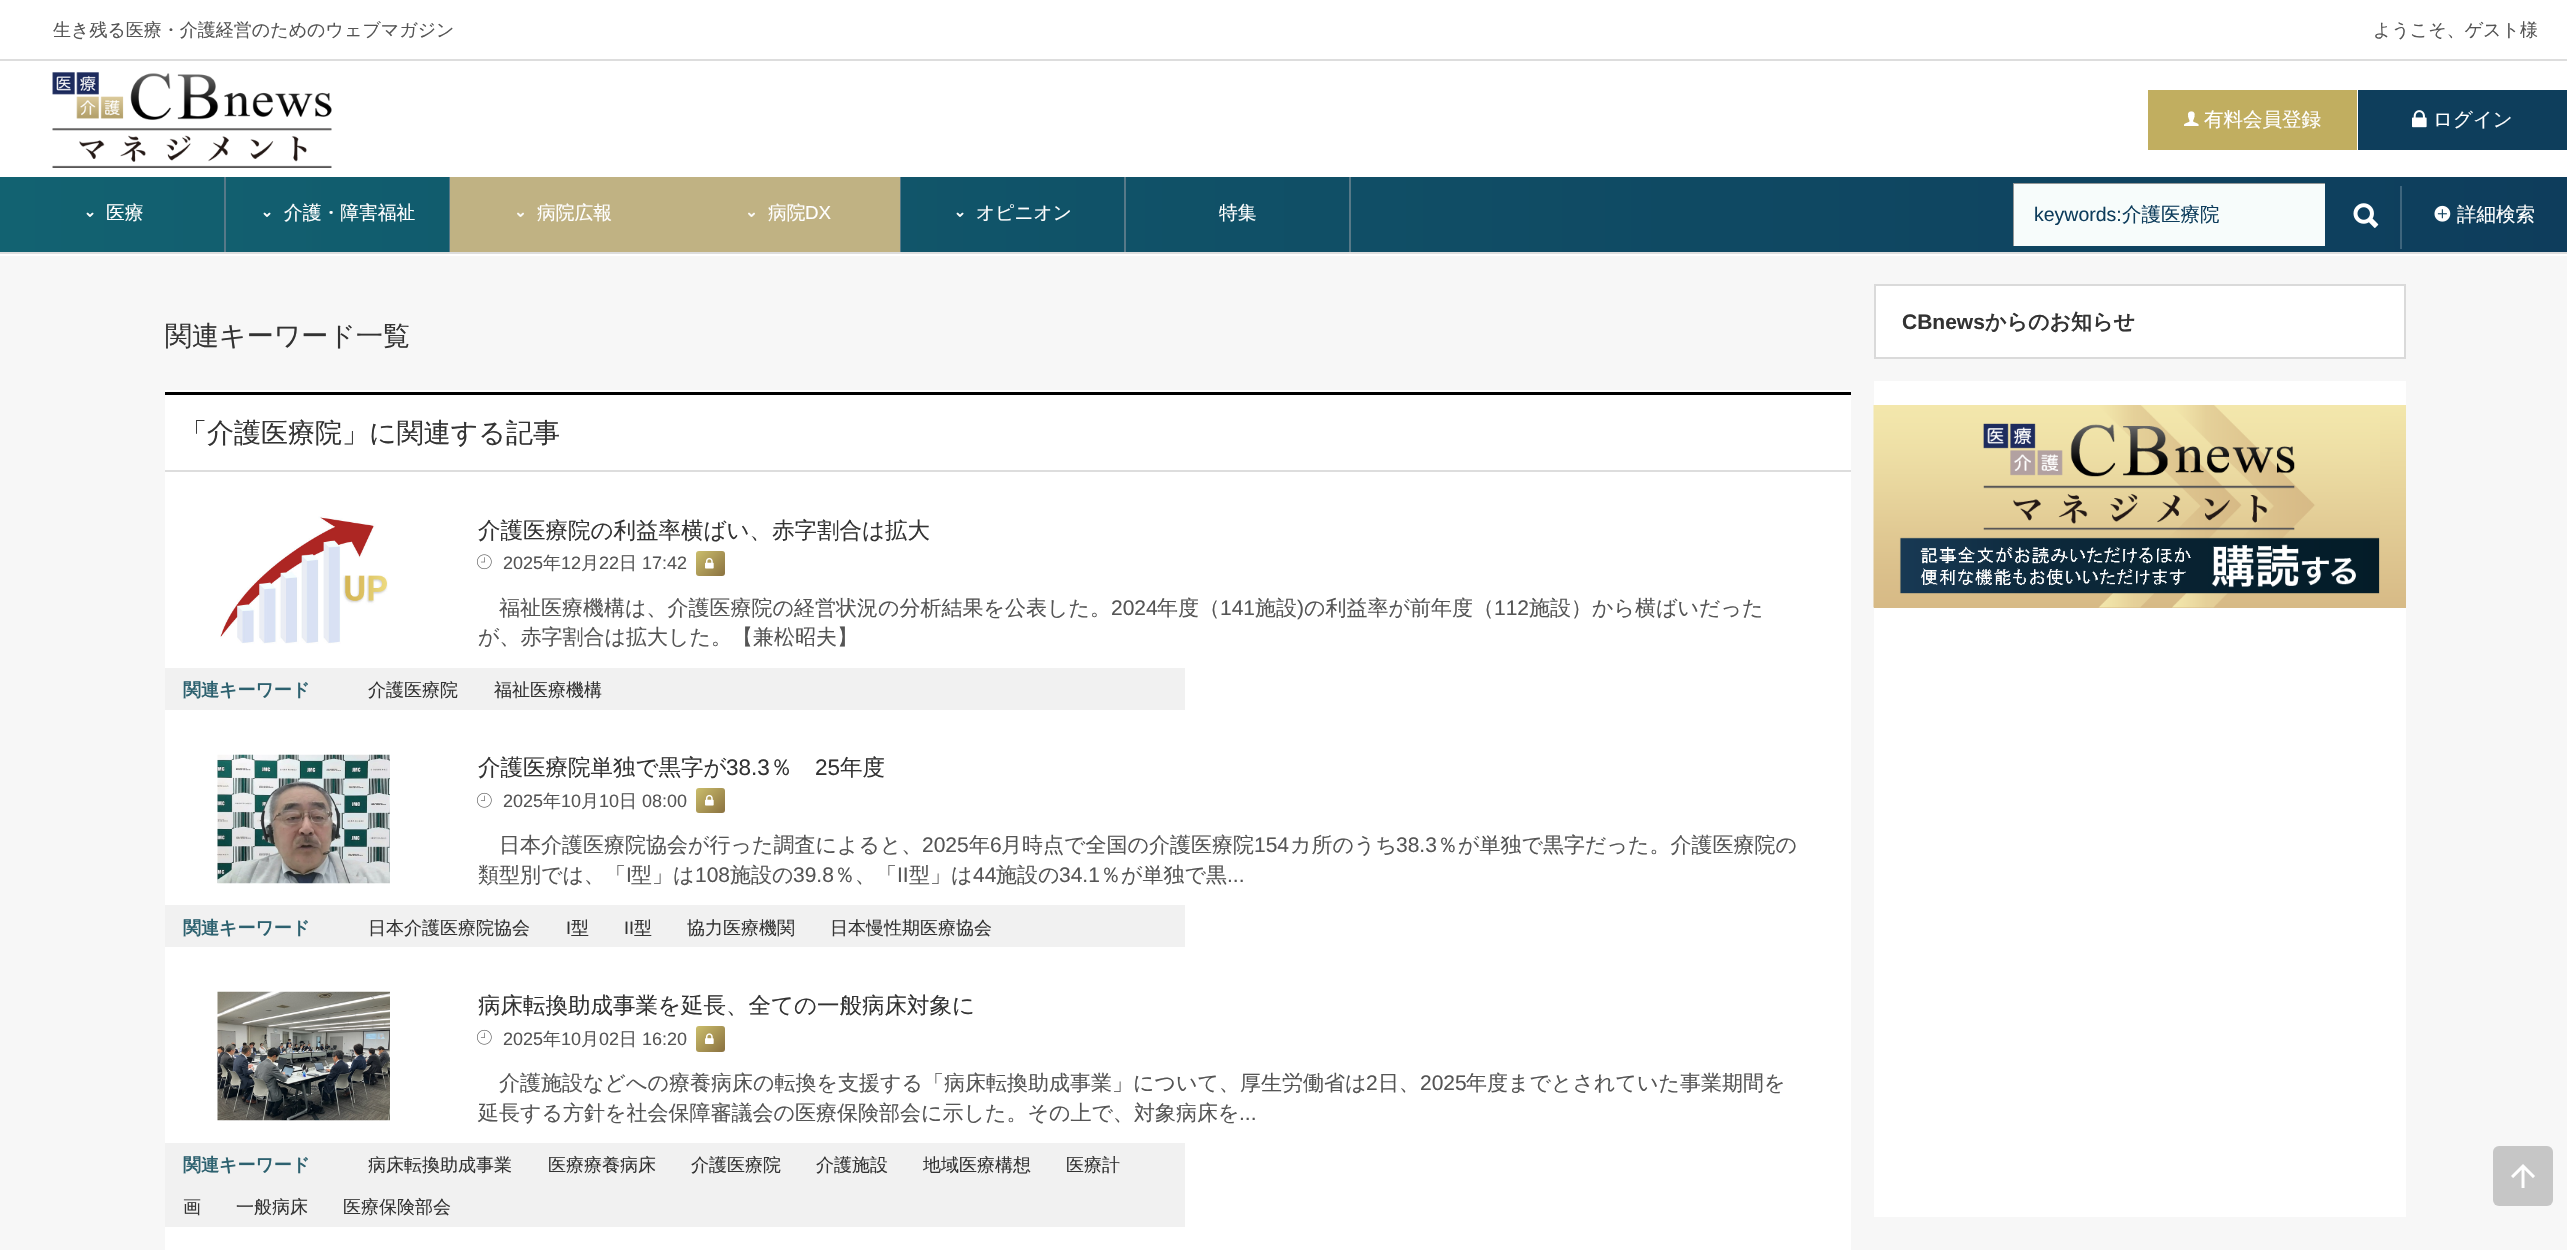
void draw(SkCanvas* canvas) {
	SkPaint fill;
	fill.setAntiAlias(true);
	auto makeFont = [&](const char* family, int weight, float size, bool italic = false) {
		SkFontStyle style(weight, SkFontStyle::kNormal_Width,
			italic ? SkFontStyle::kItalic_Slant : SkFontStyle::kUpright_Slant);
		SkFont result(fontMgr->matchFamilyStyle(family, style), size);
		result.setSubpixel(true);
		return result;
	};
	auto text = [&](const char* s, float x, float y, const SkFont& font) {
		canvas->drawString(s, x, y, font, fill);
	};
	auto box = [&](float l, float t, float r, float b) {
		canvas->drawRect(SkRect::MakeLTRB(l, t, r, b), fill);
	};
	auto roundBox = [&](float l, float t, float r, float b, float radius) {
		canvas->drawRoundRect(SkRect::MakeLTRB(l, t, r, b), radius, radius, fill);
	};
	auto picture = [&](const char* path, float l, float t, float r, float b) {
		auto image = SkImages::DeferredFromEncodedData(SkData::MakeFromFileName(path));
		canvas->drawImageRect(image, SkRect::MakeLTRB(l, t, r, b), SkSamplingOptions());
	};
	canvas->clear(0xFFF7F7F7);
	fill.setColor(0xFFFFFFFF);
	box(0, 0, 2567, 177);
	fill.setColor(0xFFDDDDDD);
	box(0, 59, 2567, 61);
	picture("image0.png", 52, 72, 332, 168);
	fill.setColor(0xFFC1AE60);
	box(2148, 90, 2357, 150);
	picture("image1.png", 2184, 111, 2199, 126);
	fill.setColor(0xFF0E3E5C);
	box(2358, 90, 2567, 150);
	picture("image2.png", 2412, 110, 2427, 128);
	{
		const SkColor colors[] = {0xFF126271, 0xFF0E3D5C};
		const float stops[] = {0, 1};
		const SkPoint ends[] = {{0, 215}, {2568, 214}};
		fill.setShader(SkGradientShader::MakeLinear(ends, colors, stops, 2, SkTileMode::kClamp));
		fill.setAlpha(255);
	}
	box(0, 177, 2567, 252);
	fill.setShader(nullptr);
	fill.setColor(0xFF577988);
	box(224, 177, 226, 252);
	picture("image3.png", 86, 212, 94, 217);
	box(449, 177, 450, 252);
	picture("image4.png", 263, 212, 271, 217);
	fill.setColor(0xFFC0B283);
	box(450, 177, 900, 252);
	picture("image5.png", 517, 212, 524, 217);
	fill.setColor(0xFF577988);
	box(900, 177, 901, 252);
	picture("image5.png", 748, 212, 755, 217);
	box(1124, 177, 1126, 252);
	picture("image6.png", 956, 212, 964, 217);
	box(1349, 177, 1351, 252);
	fill.setColor(0xFFF7FCFB);
	box(2014, 184, 2325, 246);
	canvas->save();
	canvas->clipRect(SkRect::MakeLTRB(2013, 183, 2325, 246));
	fill.setColor(0xFF949797);
	canvas->drawPath(SkPathBuilder(SkPathFillType::kEvenOdd).moveTo(1864, 34).lineTo(2474, 34).lineTo(2474, 394).lineTo(1864, 394).close().moveTo(2014, 184).lineTo(2326, 184).lineTo(2326, 248).lineTo(2014, 248).close().detach(), fill);
	canvas->restore();
	fill.setColor(0xFF3E657D);
	box(2400, 186, 2402, 249);
	picture("image7.png", 2353, 203, 2379, 228);
	picture("image8.png", 2434, 205, 2451, 222);
	fill.setColor(0xFFFFFFFF);
	box(0, 254, 2567, 256);
	fill.setColor(0xFFDDDDDD);
	box(0, 252, 2567, 254);
	fill.setColor(0xFFFFFFFF);
	box(165, 390, 1851, 1250);
	fill.setColor(0xFF000000);
	box(165, 392, 1851, 395);
	fill.setColor(0xFFDDDDDD);
	box(165, 470, 1851, 472);
	picture("image9.png", 220, 516, 388, 644);
	picture("image10.png", 477, 554, 492, 570);
	{
		const SkColor colors[] = {0xFFCBBE6C, 0xFF8A7140};
		const float stops[] = {0, 1};
		const SkPoint ends[] = {{697, 550}, {724, 577}};
		fill.setShader(SkGradientShader::MakeLinear(ends, colors, stops, 2, SkTileMode::kClamp));
		fill.setAlpha(255);
	}
	roundBox(696, 551, 725, 576, 3);
	picture("image11.png", 705, 557, 714, 569);
	fill.setShader(nullptr);
	fill.setColor(0xFFF1F1F1);
	box(165, 668, 1185, 710);
	picture("image12.png", 217, 754, 390, 884);
	picture("image13.png", 477, 792, 492, 808);
	{
		const SkColor colors[] = {0xFFCBBE6C, 0xFF8A7140};
		const float stops[] = {0, 1};
		const SkPoint ends[] = {{697, 787}, {724, 814}};
		fill.setShader(SkGradientShader::MakeLinear(ends, colors, stops, 2, SkTileMode::kClamp));
		fill.setAlpha(255);
	}
	roundBox(696, 788, 725, 813, 3);
	picture("image11.png", 705, 794, 714, 806);
	fill.setShader(nullptr);
	fill.setColor(0xFFF1F1F1);
	box(165, 905, 1185, 947);
	picture("image14.png", 217, 991, 390, 1121);
	picture("image13.png", 477, 1029, 492, 1045);
	{
		const SkColor colors[] = {0xFFCBBE6C, 0xFF8A7140};
		const float stops[] = {0, 1};
		const SkPoint ends[] = {{697, 1025}, {724, 1052}};
		fill.setShader(SkGradientShader::MakeLinear(ends, colors, stops, 2, SkTileMode::kClamp));
		fill.setAlpha(255);
	}
	roundBox(696, 1026, 725, 1052, 3);
	picture("image15.png", 705, 1033, 714, 1044);
	fill.setShader(nullptr);
	fill.setColor(0xFFF1F1F1);
	box(165, 1143, 1185, 1227);
	fill.setColor(0xFFFFFFFF);
	canvas->drawRect(SkRect::MakeLTRB(1875, 285, 2405, 358), fill);
	fill.setStyle(SkPaint::kStroke_Style);
	fill.setStrokeWidth(2);
	fill.setColor(0xFFDADADA);
	canvas->drawRect(SkRect::MakeLTRB(1875, 285, 2405, 358), fill);
	fill.setStyle(SkPaint::kFill_Style);
	fill.setColor(0xFFFFFFFF);
	box(1874, 381, 2406, 1217);
	{
		const SkColor colors[] = {0xFFF3E7AC, 0xFFD7BA86};
		const float stops[] = {0, 1};
		const SkPoint ends[] = {{2140, 405}, {2140, 608}};
		fill.setShader(SkGradientShader::MakeLinear(ends, colors, stops, 2, SkTileMode::kClamp));
		fill.setAlpha(255);
	}
	box(1874, 405, 2406, 608);
	picture("image16.png", 1873, 405, 2380, 608);
	fill.setShader(nullptr);
	fill.setColor(0xFFC6C6C6);
	roundBox(2493, 1146, 2553, 1206, 6);
	picture("image17.png", 2511, 1164, 2535, 1188);
	auto font1 = makeFont("WenQuanYi Zen Hei", 500, 18);
	fill.setColor(0xFF555555);
	text("生き残る医療・介護経営のためのウェブマガジン", 53, 36, font1);
	text("ようこそ、ゲスト様", 2373, 36, font1);
	auto font2 = makeFont("WenQuanYi Zen Hei", 500, 19.5f);
	fill.setColor(0xFFFFFFFF);
	text("有料会員登録", 2204, 126, font2);
	text("ログイン", 2433, 126, font2);
	auto font3 = makeFont("WenQuanYi Zen Hei", 500, 18.75f);
	text("医療", 106, 219, font3);
	text("介護・障害福祉", 284, 219, font3);
	text("病院広報", 537, 219, font3);
	text("病院", 768, 219, font3);
	auto font4 = makeFont("Liberation Sans", 400, 18.75f);
	text("DX", 805, 219, font4);
	text("オピニオン", 976, 219, font3);
	text("特集", 1219, 219, font3);
	auto font5 = makeFont("Liberation Sans", 400, 19.5f);
	fill.setColor(0xFF0E3D5C);
	text("keywords:", 2034, 221, font5);
	text("介護医療院", 2122, 221, font2);
	fill.setColor(0xFFFFFFFF);
	text("詳細検索", 2457, 221, font2);
	auto font6 = makeFont("WenQuanYi Zen Hei", 500, 27);
	fill.setColor(0xFF333333);
	text("関連キーワード一覧", 165, 345, font6);
	text("「介護医療院」に関連する記事", 180, 442, font6);
	auto font7 = makeFont("WenQuanYi Zen Hei", 500, 22.5f);
	text("介護医療院の利益率横ばい、赤字割合は拡大", 478, 538, font7);
	auto font8 = makeFont("Liberation Sans", 400, 18);
	fill.setColor(0xFF555555);
	text("2025", 503, 569, font8);
	text("年", 543, 569, font1);
	text("12", 561, 569, font8);
	text("月", 581, 569, font1);
	text("22", 599, 569, font8);
	text("日", 619, 569, font1);
	text("17:42", 642, 569, font8);
	auto font9 = makeFont("WenQuanYi Zen Hei", 500, 21);
	text("福祉医療機構は、介護医療院の経営状況の分析結果を公表した。", 499, 615, font9);
	auto font10 = makeFont("Liberation Sans", 400, 21);
	text("2024", 1111, 615, font10);
	text("年度（", 1157, 615, font9);
	text("141", 1220, 615, font10);
	text("施設", 1255, 615, font9);
	text(")", 1297, 615, font10);
	text("の利益率が前年度（", 1304, 615, font9);
	text("112", 1494, 615, font10);
	text("施設）から横ばいだった", 1529, 615, font9);
	text("が、赤字割合は拡大した。【兼松昭夫】", 478, 644, font9);
	auto font11 = makeFont("WenQuanYi Zen Hei", 700, 18);
	fill.setColor(0xFF2D616F);
	text("関連キーワード", 183, 696, font11);
	fill.setColor(0xFF333333);
	text("介護医療院", 368, 696, font1);
	text("福祉医療機構", 494, 696, font1);
	text("介護医療院単独で黒字が", 478, 775, font7);
	auto font12 = makeFont("Liberation Sans", 400, 22.5f);
	text("38.3", 726, 775, font12);
	text("％", 770, 775, font7);
	text("25", 815, 775, font12);
	text("年度", 840, 775, font7);
	fill.setColor(0xFF555555);
	text("2025", 503, 807, font8);
	text("年", 543, 807, font1);
	text("10", 561, 807, font8);
	text("月", 581, 807, font1);
	text("10", 599, 807, font8);
	text("日", 619, 807, font1);
	text("08:00", 642, 807, font8);
	text("日本介護医療院協会が行った調査によると、", 499, 852, font9);
	text("2025", 922, 852, font10);
	text("年", 969, 852, font9);
	text("6", 990, 852, font10);
	text("月時点で全国の介護医療院", 1001, 852, font9);
	text("154", 1254, 852, font10);
	text("カ所のうち", 1290, 852, font9);
	text("38.3", 1396, 852, font10);
	text("％が単独で黒字だった。介護医療院の", 1437, 852, font9);
	text("類型別では、「", 478, 882, font9);
	text("I", 626, 882, font10);
	text("型」は", 631, 882, font9);
	text("108", 695, 882, font10);
	text("施設の", 730, 882, font9);
	text("39.8", 793, 882, font10);
	text("％、「", 834, 882, font9);
	text("II", 897, 882, font10);
	text("型」は", 909, 882, font9);
	text("44", 973, 882, font10);
	text("施設の", 996, 882, font9);
	text("34.1", 1059, 882, font10);
	text("％が単独で黒", 1100, 882, font9);
	text("...", 1227, 882, font10);
	fill.setColor(0xFF2D616F);
	text("関連キーワード", 183, 934, font11);
	fill.setColor(0xFF333333);
	text("日本介護医療院協会", 368, 934, font1);
	text("I", 566, 934, font8);
	text("型", 571, 934, font1);
	text("II", 624, 934, font8);
	text("型", 634, 934, font1);
	text("協力医療機関", 687, 934, font1);
	text("日本慢性期医療協会", 830, 934, font1);
	text("病床転換助成事業を延長、全ての一般病床対象に", 478, 1013, font7);
	fill.setColor(0xFF555555);
	text("2025", 503, 1045, font8);
	text("年", 543, 1045, font1);
	text("10", 561, 1045, font8);
	text("月", 581, 1045, font1);
	text("02", 599, 1045, font8);
	text("日", 619, 1045, font1);
	text("16:20", 642, 1045, font8);
	text("介護施設などへの療養病床の転換を支援する「病床転換助成事業」について、厚生労働省は", 499, 1090, font9);
	text("2", 1366, 1090, font10);
	text("日、", 1378, 1090, font9);
	text("2025", 1420, 1090, font10);
	text("年度までとされていた事業期間を", 1466, 1090, font9);
	text("延長する方針を社会保障審議会の医療保険部会に示した。その上で、対象病床を", 478, 1120, font9);
	text("...", 1239, 1120, font10);
	fill.setColor(0xFF2D616F);
	text("関連キーワード", 183, 1171, font11);
	fill.setColor(0xFF333333);
	text("病床転換助成事業", 368, 1171, font1);
	text("医療療養病床", 548, 1171, font1);
	text("介護医療院", 691, 1171, font1);
	text("介護施設", 816, 1171, font1);
	text("地域医療構想", 923, 1171, font1);
	text("医療計", 1066, 1171, font1);
	text("画", 183, 1213, font1);
	text("一般病床", 236, 1213, font1);
	text("医療保険部会", 343, 1213, font1);
	auto font13 = makeFont("Liberation Sans", 700, 21);
	text("CBnews", 1902, 329, font13);
	auto font14 = makeFont("WenQuanYi Zen Hei", 700, 21);
	text("からのお知らせ", 1985, 329, font14);
}
